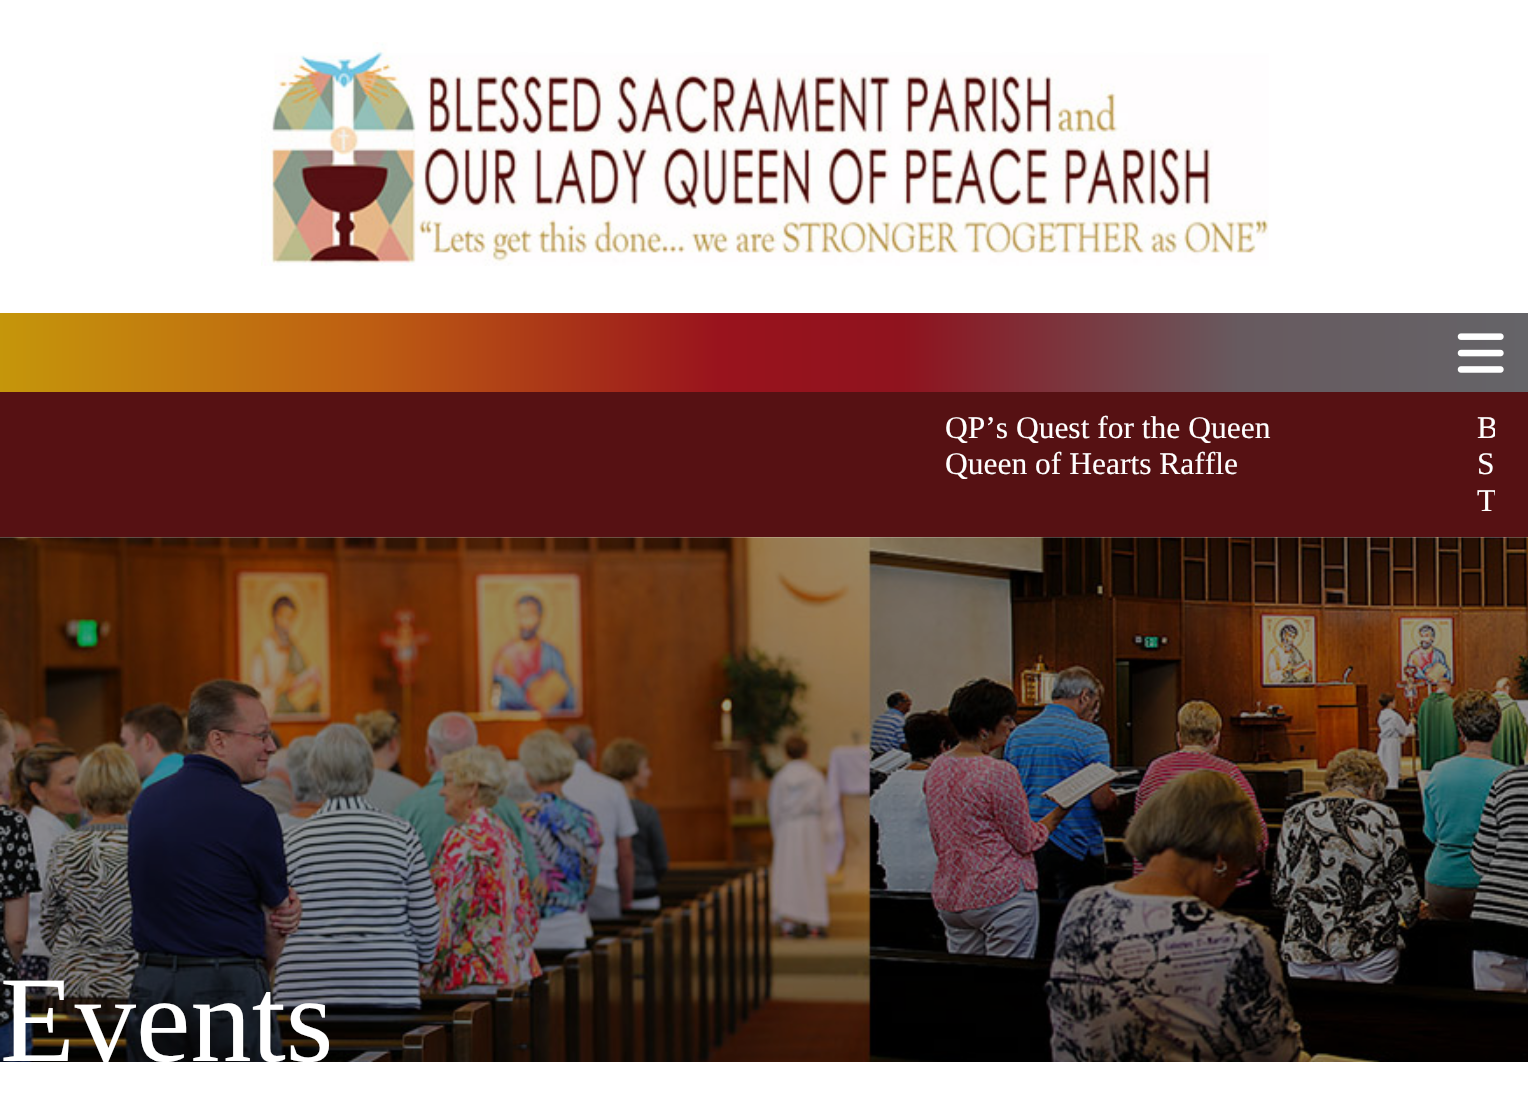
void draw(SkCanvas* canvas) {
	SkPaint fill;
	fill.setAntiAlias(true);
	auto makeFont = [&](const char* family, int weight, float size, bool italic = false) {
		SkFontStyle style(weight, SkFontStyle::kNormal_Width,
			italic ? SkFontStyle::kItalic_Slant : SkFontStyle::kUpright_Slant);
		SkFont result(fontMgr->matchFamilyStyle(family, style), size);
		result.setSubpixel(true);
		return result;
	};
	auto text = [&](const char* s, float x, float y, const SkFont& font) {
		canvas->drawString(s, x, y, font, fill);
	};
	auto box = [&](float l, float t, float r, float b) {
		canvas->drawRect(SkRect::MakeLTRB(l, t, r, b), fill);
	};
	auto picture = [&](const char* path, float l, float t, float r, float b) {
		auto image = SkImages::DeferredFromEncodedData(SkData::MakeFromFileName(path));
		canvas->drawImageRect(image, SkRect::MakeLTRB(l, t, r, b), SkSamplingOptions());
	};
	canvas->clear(0xFFFFFFFF);
	picture("image0.png", 261, 42, 1269, 266);
	{
		const SkColor colors[] = {0xFFC5960B, 0xFFBE5E12, 0xFF99131D, 0xFF8F131E, 0xFF675A5F, 0xFF656468};
		const float stops[] = {0, 0.24f, 0.47f, 0.59f, 0.81f, 1};
		const SkPoint ends[] = {{0, 353}, {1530, 353}};
		fill.setShader(SkGradientShader::MakeLinear(ends, colors, stops, 6, SkTileMode::kClamp));
		fill.setAlpha(255);
	}
	box(0, 313, 1528, 392);
	picture("image1.png", 1457, 333, 1504, 373);
	fill.setShader(nullptr);
	fill.setColor(0xFF561113);
	box(0, 392, 1528, 537);
	picture("image2.png", 0, 537, 1528, 1062);
	auto font1 = makeFont("Liberation Serif", 400, 31.5f);
	fill.setColor(0xFFFFFFFF);
	text("QP’s Quest for the Queen", 945, 438, font1);
	text("Queen of Hearts Raffle", 945, 474, font1);
	canvas->save();
	canvas->clipRect(SkRect::MakeLTRB(35, 410, 1495, 520));
	text("B", 1477, 438, font1);
	canvas->restore();
	text("S", 1477, 474, font1);
	canvas->save();
	canvas->clipRect(SkRect::MakeLTRB(35, 410, 1495, 520));
	text("T", 1477, 511, font1);
	canvas->restore();
	auto font2 = makeFont("Liberation Serif", 400, 122.5f);
	text("Events", 0, 1061, font2);
}
